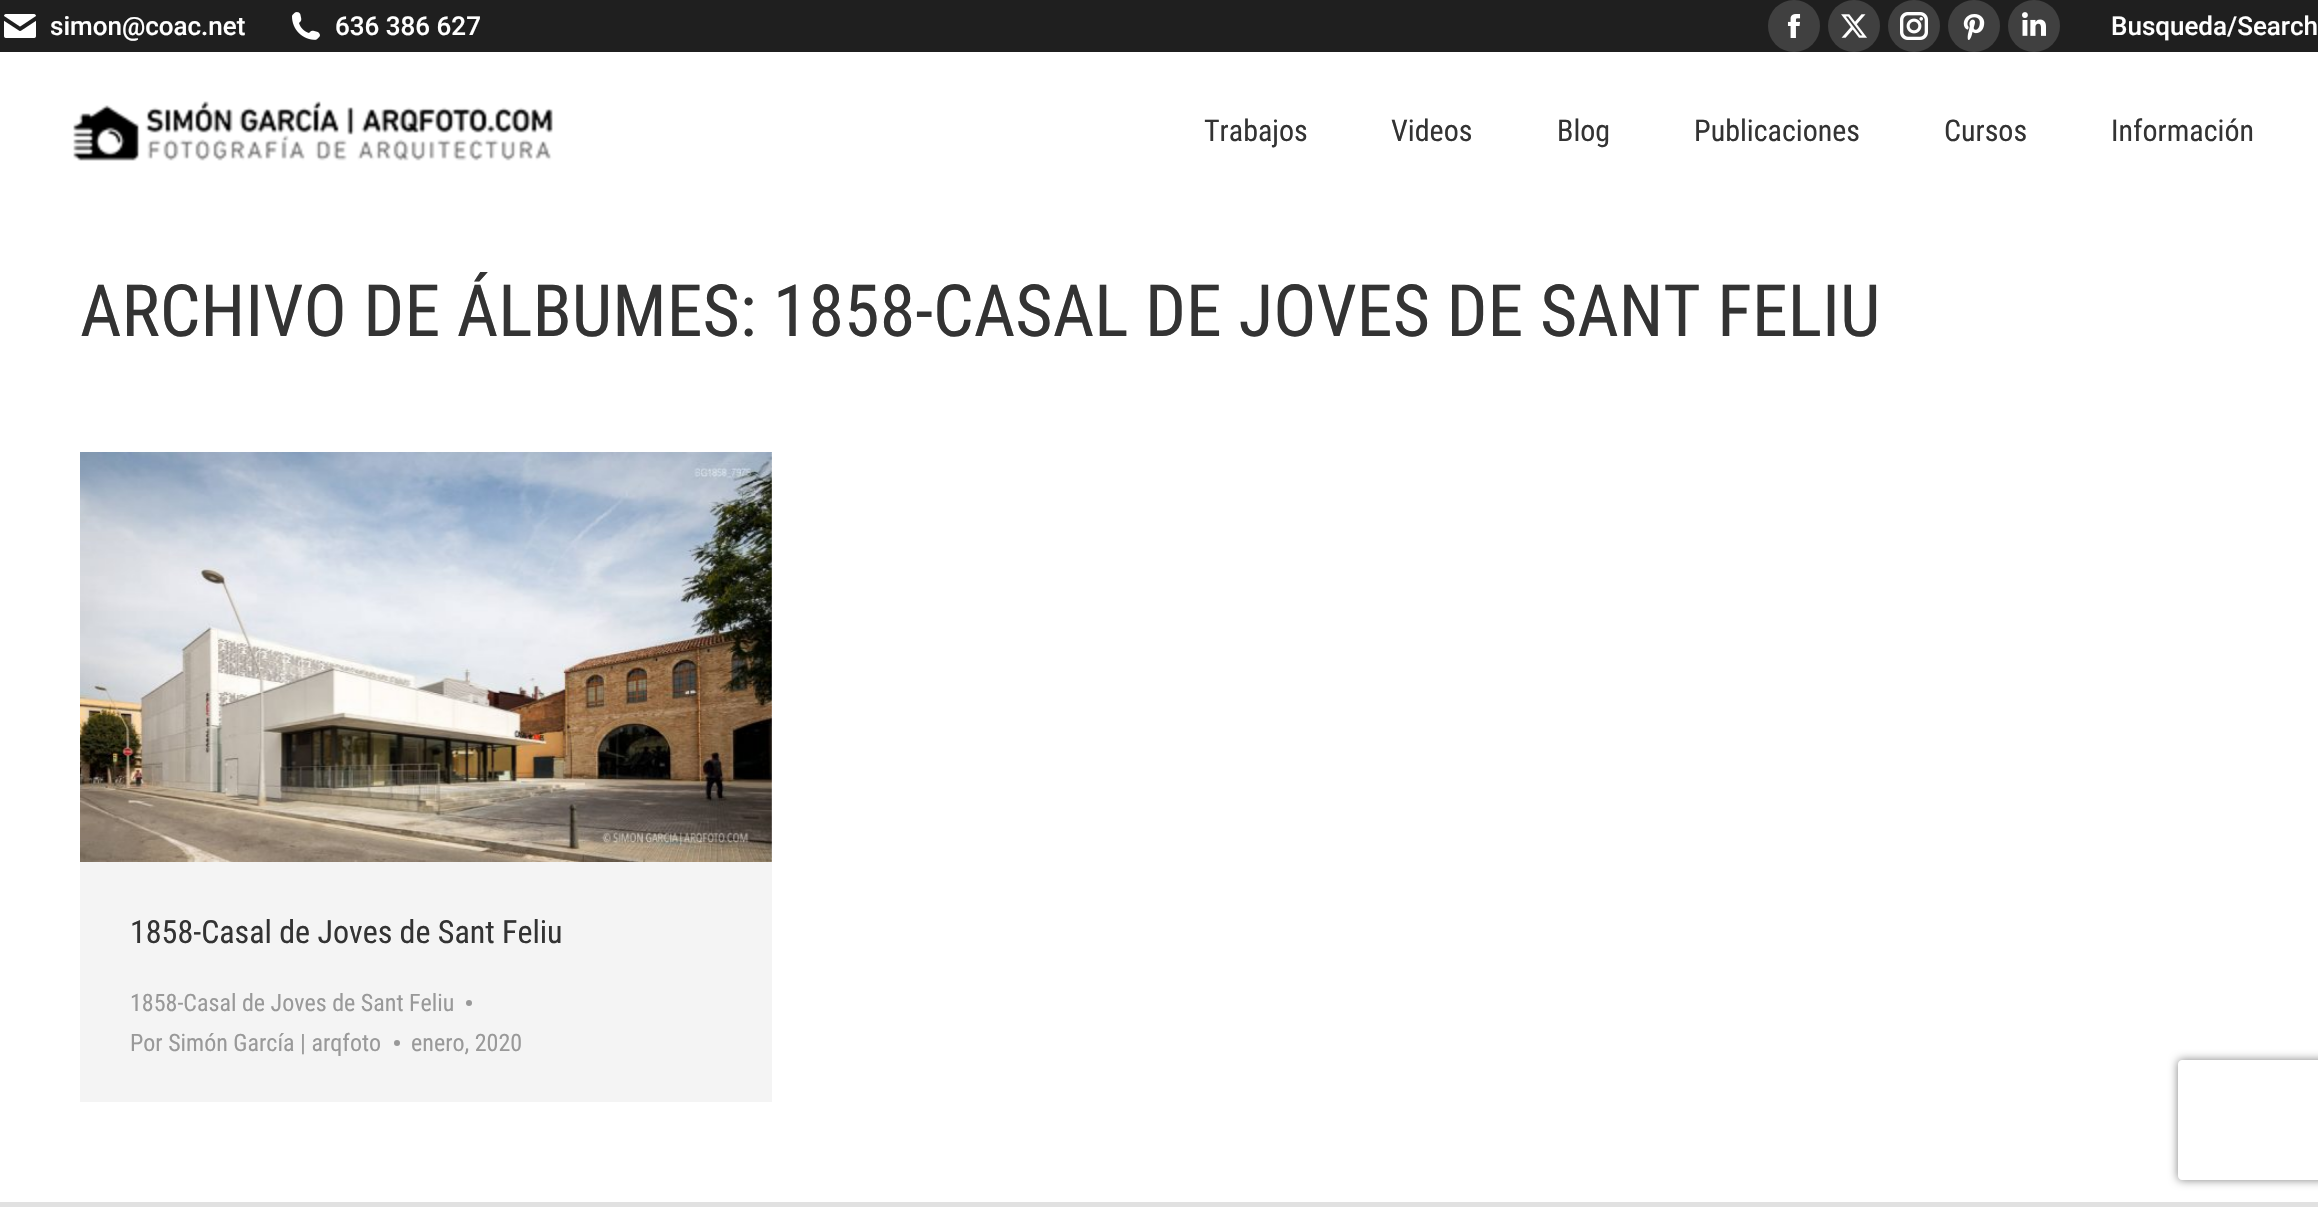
void draw(SkCanvas* canvas) {
	SkPaint fill;
	fill.setAntiAlias(true);
	auto makeFont = [&](const char* family, int weight, float size, bool italic = false) {
		SkFontStyle style(weight, SkFontStyle::kNormal_Width,
			italic ? SkFontStyle::kItalic_Slant : SkFontStyle::kUpright_Slant);
		SkFont result(fontMgr->matchFamilyStyle(family, style), size);
		result.setSubpixel(true);
		return result;
	};
	auto text = [&](const char* s, float x, float y, const SkFont& font) {
		canvas->drawString(s, x, y, font, fill);
	};
	auto box = [&](float l, float t, float r, float b) {
		canvas->drawRect(SkRect::MakeLTRB(l, t, r, b), fill);
	};
	auto picture = [&](const char* path, float l, float t, float r, float b) {
		auto image = SkImages::DeferredFromEncodedData(SkData::MakeFromFileName(path));
		canvas->drawImageRect(image, SkRect::MakeLTRB(l, t, r, b), SkSamplingOptions());
	};
	canvas->clear(0xFFFFFFFF);
	fill.setColor(0xFF1F1F1F);
	box(0, 0, 2318, 52);
	picture("image0.png", 4, 14, 36, 38);
	picture("image1.png", 292, 12, 320, 40);
	fill.setColor(0xFF404040);
	canvas->drawCircle(1794, 26, 26, fill);
	picture("image2.png", 1787, 14, 1801, 38);
	canvas->drawCircle(1854, 26, 26, fill);
	picture("image3.png", 1841, 14, 1867, 38);
	canvas->drawCircle(1914, 26, 26, fill);
	picture("image4.png", 1900, 12, 1928, 40);
	canvas->drawCircle(1974, 26, 26, fill);
	picture("image5.png", 1963, 14, 1985, 40);
	canvas->drawCircle(2034, 26, 26, fill);
	picture("image6.png", 2022, 12, 2046, 36);
	picture("image7.png", 73, 101, 553, 161);
	fill.setColor(0xFFF4F4F4);
	box(80, 452, 772, 1102);
	picture("image8.png", 80, 452, 772, 862);
	fill.setColor(0xFF999999);
	canvas->drawCircle(469, 1003, 3, fill);
	canvas->drawCircle(397, 1043, 3, fill);
	fill.setColor(0xFFE1E1E1);
	box(0, 1202, 2318, 1207);
	canvas->save();
	canvas->clipPath(SkPathBuilder(SkPathFillType::kEvenOdd).moveTo(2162, 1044).lineTo(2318, 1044).lineTo(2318, 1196).lineTo(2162, 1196).close().moveTo(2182, 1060).lineTo(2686, 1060).cubicTo(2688, 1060, 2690, 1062, 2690, 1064).lineTo(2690, 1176).cubicTo(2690, 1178, 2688, 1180, 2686, 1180).lineTo(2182, 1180).cubicTo(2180, 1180, 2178, 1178, 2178, 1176).lineTo(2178, 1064).cubicTo(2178, 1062, 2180, 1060, 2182, 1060).close().detach(), true);
	fill.setColor(0xFF808080);
	fill.setMaskFilter(SkMaskFilter::MakeBlur(kNormal_SkBlurStyle, 5));
	canvas->drawRoundRect(SkRect::MakeLTRB(2178, 1060, 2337, 1180), 4, 4, fill);
	fill.setMaskFilter(nullptr);
	canvas->restore();
	auto font1 = makeFont("Roboto", 500, 26);
	fill.setColor(0xFFFFFFFF);
	text("simon@coac.net", 50, 35, font1);
	text("636 386 627", 335, 35, font1);
	text("Busqueda/Search", 2111, 35, font1);
	auto font2 = makeFont("Roboto Condensed", 400, 30);
	fill.setColor(0xFF333333);
	text("Trabajos", 1204, 141, font2);
	text("Videos", 1391, 141, font2);
	text("Blog", 1557, 141, font2);
	text("Publicaciones", 1694, 141, font2);
	text("Cursos", 1944, 141, font2);
	text("Información", 2111, 141, font2);
	canvas->save();
	canvas->clipRect(SkRect::MakeLTRB(80, 272, 1880, 352));
	auto font3 = makeFont("Roboto Condensed", 400, 72);
	text("ARCHIVO DE ÁLBUMES:", 80, 336, font3);
	canvas->restore();
	text("1858-CASAL DE JOVES DE SANT FELIU", 773, 336, font3);
	auto font4 = makeFont("Roboto Condensed", 400, 32);
	text("1858-Casal de Joves de Sant Feliu", 130, 943, font4);
	auto font5 = makeFont("Roboto Condensed", 400, 24);
	fill.setColor(0xFF999999);
	text("1858-Casal de Joves de Sant Feliu", 130, 1011, font5);
	text("Por Simón García | arqfoto", 130, 1051, font5);
	text("enero, 2020", 411, 1051, font5);
}
